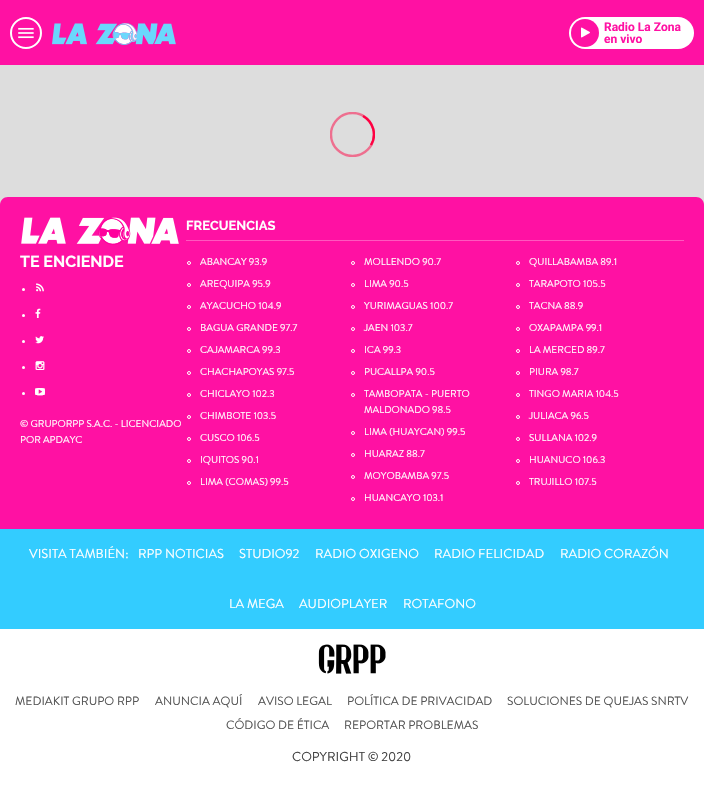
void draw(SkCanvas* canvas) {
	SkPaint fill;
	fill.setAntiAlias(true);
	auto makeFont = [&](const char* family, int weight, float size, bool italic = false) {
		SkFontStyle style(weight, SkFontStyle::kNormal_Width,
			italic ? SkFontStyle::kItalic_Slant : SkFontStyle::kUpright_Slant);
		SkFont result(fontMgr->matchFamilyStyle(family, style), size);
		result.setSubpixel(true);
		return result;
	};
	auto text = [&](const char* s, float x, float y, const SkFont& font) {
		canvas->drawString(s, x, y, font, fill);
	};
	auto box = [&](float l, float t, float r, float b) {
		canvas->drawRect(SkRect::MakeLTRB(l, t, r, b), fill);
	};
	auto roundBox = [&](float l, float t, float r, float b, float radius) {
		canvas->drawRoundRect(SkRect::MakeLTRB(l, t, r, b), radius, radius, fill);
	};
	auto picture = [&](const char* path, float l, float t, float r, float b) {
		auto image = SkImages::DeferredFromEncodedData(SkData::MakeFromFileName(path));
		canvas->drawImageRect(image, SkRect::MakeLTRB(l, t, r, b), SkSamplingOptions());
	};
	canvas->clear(0xFFDDDDDD);
	fill.setColor(0xFFFF11A3);
	box(0, 0, 704, 65);
	fill.setStyle(SkPaint::kStroke_Style);
	fill.setStrokeWidth(2);
	fill.setColor(0xFFFFFFFF);
	canvas->drawCircle(26, 33, 15, fill);
	picture("image0.png", 18, 27, 34, 39);
	picture("image1.png", 52, 23, 176, 45);
	fill.setStyle(SkPaint::kFill_Style);
	roundBox(569, 17, 694, 49, 16);
	fill.setColor(0xFFFF11A3);
	canvas->drawCircle(585, 33, 14, fill);
	picture("image2.png", 581, 27, 590, 38);
	canvas->save();
	canvas->clipRect(SkRect::MakeLTRB(330, 112, 375, 157));
	fill.setStyle(SkPaint::kStroke_Style);
	fill.setStrokeWidth(2.4f);
	fill.setColor(0xFFEE6F8F);
	canvas->drawCircle(352.5f, 134.5f, 21.5f, fill);
	fill.setColor(0xFFFF0041);
	canvas->drawPath(SkPathBuilder().moveTo(371, 145).cubicTo(377, 135, 373.5f, 122, 363, 116).detach(), fill);
	canvas->restore();
	fill.setStyle(SkPaint::kFill_Style);
	fill.setColor(0xFFFF11A3);
	canvas->drawPath(SkPathBuilder().moveTo(8, 197).lineTo(696, 197).cubicTo(700.5f, 197, 704, 200.5f, 704, 205).lineTo(704, 529).lineTo(0, 529).lineTo(0, 205).cubicTo(0, 200.5f, 3.5f, 197, 8, 197).close().detach(), fill);
	picture("image3.png", 21, 217, 179, 245);
	fill.setColor(0xFFFFFFFF);
	canvas->drawCircle(23.5f, 289.5f, 1.5f, fill);
	picture("image4.png", 36, 283, 44, 292);
	canvas->drawCircle(23.5f, 315.5f, 1.5f, fill);
	picture("image5.png", 35, 308, 41, 318);
	canvas->drawCircle(23.5f, 341.5f, 1.5f, fill);
	picture("image6.png", 35, 336, 44, 344);
	canvas->drawCircle(23.5f, 367.5f, 1.5f, fill);
	canvas->drawCircle(23.5f, 393.5f, 1.5f, fill);
	fill.setColor(0xFFFF58BF);
	box(186, 240, 684, 241);
	fill.setStyle(SkPaint::kStroke_Style);
	fill.setStrokeWidth(1);
	fill.setColor(0xFFFFFFFF);
	canvas->drawCircle(189, 263, 1.5f, fill);
	canvas->drawCircle(189, 285, 1.5f, fill);
	canvas->drawCircle(189, 307, 1.5f, fill);
	canvas->drawCircle(189, 329, 1.5f, fill);
	canvas->drawCircle(189, 351, 1.5f, fill);
	canvas->drawCircle(189, 373, 1.5f, fill);
	canvas->drawCircle(189, 395, 1.5f, fill);
	canvas->drawCircle(189, 417, 1.5f, fill);
	canvas->drawCircle(189, 439, 1.5f, fill);
	canvas->drawCircle(189, 461, 1.5f, fill);
	canvas->drawCircle(189, 483, 1.5f, fill);
	canvas->drawCircle(353, 263, 1.5f, fill);
	canvas->drawCircle(353, 285, 1.5f, fill);
	canvas->drawCircle(353, 307, 1.5f, fill);
	canvas->drawCircle(353, 329, 1.5f, fill);
	canvas->drawCircle(353, 351, 1.5f, fill);
	canvas->drawCircle(353, 373, 1.5f, fill);
	canvas->drawCircle(353, 395, 1.5f, fill);
	canvas->drawCircle(353, 433, 1.5f, fill);
	canvas->drawCircle(353, 455, 1.5f, fill);
	canvas->drawCircle(353, 477, 1.5f, fill);
	canvas->drawCircle(353, 499, 1.5f, fill);
	canvas->drawCircle(518, 263, 1.5f, fill);
	canvas->drawCircle(518, 285, 1.5f, fill);
	canvas->drawCircle(518, 307, 1.5f, fill);
	canvas->drawCircle(518, 329, 1.5f, fill);
	canvas->drawCircle(518, 351, 1.5f, fill);
	canvas->drawCircle(518, 373, 1.5f, fill);
	canvas->drawCircle(518, 395, 1.5f, fill);
	canvas->drawCircle(518, 417, 1.5f, fill);
	canvas->drawCircle(518, 439, 1.5f, fill);
	canvas->drawCircle(518, 461, 1.5f, fill);
	canvas->drawCircle(518, 483, 1.5f, fill);
	fill.setStyle(SkPaint::kFill_Style);
	fill.setColor(0xFF33CCFF);
	box(0, 529, 704, 629);
	fill.setColor(0xFFFFFFFF);
	box(0, 629, 704, 793);
	picture("image7.png", 318, 644, 386, 674);
	auto font1 = makeFont("Roboto", 700, 12);
	fill.setColor(0xFFFF11A3);
	text("Radio La Zona", 604, 31, font1);
	text("en vivo", 604, 43, font1);
	auto font2 = makeFont("Raleway", 700, 16);
	fill.setColor(0xFFFFFFFF);
	text("TE ENCIENDE", 20, 267, font2);
	auto font3 = makeFont("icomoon", 400, 10);
	text(":", 35, 370, font3);
	text("{", 35, 396, font3);
	auto font4 = makeFont("Brandon Grotesque", 400, 10);
	text("© GRUPORPP S.A.C. - LICENCIADO", 20, 427, font4);
	text("POR APDAYC", 20, 443, font4);
	auto font5 = makeFont("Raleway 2", 700, 13);
	text("FRECUENCIAS", 186, 230, font5);
	text("ABANCAY 93.9", 200, 265, font4);
	text("AREQUIPA 95.9", 200, 287, font4);
	text("AYACUCHO 104.9", 200, 309, font4);
	text("BAGUA GRANDE 97.7", 200, 331, font4);
	text("CAJAMARCA 99.3", 200, 353, font4);
	text("CHACHAPOYAS 97.5", 200, 375, font4);
	text("CHICLAYO 102.3", 200, 397, font4);
	text("CHIMBOTE 103.5", 200, 419, font4);
	text("CUSCO 106.5", 200, 441, font4);
	text("IQUITOS 90.1", 200, 463, font4);
	text("LIMA (COMAS) 99.5", 200, 485, font4);
	text("MOLLENDO 90.7", 364, 265, font4);
	text("LIMA 90.5", 364, 287, font4);
	text("YURIMAGUAS 100.7", 364, 309, font4);
	text("JAEN 103.7", 364, 331, font4);
	text("ICA 99.3", 364, 353, font4);
	text("PUCALLPA 90.5", 364, 375, font4);
	text("TAMBOPATA - PUERTO", 364, 397, font4);
	text("MALDONADO 98.5", 364, 413, font4);
	text("LIMA (HUAYCAN) 99.5", 364, 435, font4);
	text("HUARAZ 88.7", 364, 457, font4);
	text("MOYOBAMBA 97.5", 364, 479, font4);
	text("HUANCAYO 103.1", 364, 501, font4);
	text("QUILLABAMBA 89.1", 529, 265, font4);
	text("TARAPOTO 105.5", 529, 287, font4);
	text("TACNA 88.9", 529, 309, font4);
	text("OXAPAMPA 99.1", 529, 331, font4);
	text("LA MERCED 89.7", 529, 353, font4);
	text("PIURA 98.7", 529, 375, font4);
	text("TINGO MARIA 104.5", 529, 397, font4);
	text("JULIACA 96.5", 529, 419, font4);
	text("SULLANA 102.9", 529, 441, font4);
	text("HUANUCO 106.3", 529, 463, font4);
	text("TRUJILLO 107.5", 529, 485, font4);
	auto font6 = makeFont("Brandon Grotesque", 400, 13);
	text("VISITA TAMBIÉN:", 29, 558, font6);
	text("RPP NOTICIAS", 138, 558, font6);
	text("STUDIO92", 239, 558, font6);
	text("RADIO OXIGENO", 315, 558, font6);
	text("RADIO FELICIDAD", 434, 558, font6);
	text("RADIO CORAZÓN", 560, 558, font6);
	text("LA MEGA", 229, 608, font6);
	text("AUDIOPLAYER", 299, 608, font6);
	text("ROTAFONO", 403, 608, font6);
	auto font7 = makeFont("Brandon Grotesque", 400, 12);
	fill.setColor(0xFF555555);
	text("MEDIAKIT GRUPO RPP", 15, 705, font7);
	text("ANUNCIA AQUÍ", 155, 705, font7);
	text("AVISO LEGAL", 258, 705, font7);
	text("POLÍTICA DE PRIVACIDAD", 347, 705, font7);
	text("SOLUCIONES DE QUEJAS SNRTV", 507, 705, font7);
	text("CÓDIGO DE ÉTICA", 226, 729, font7);
	text("REPORTAR PROBLEMAS", 344, 729, font7);
	fill.setColor(0xFF424242);
	text("COPYRIGHT © 2020", 292, 761, font6);
}
